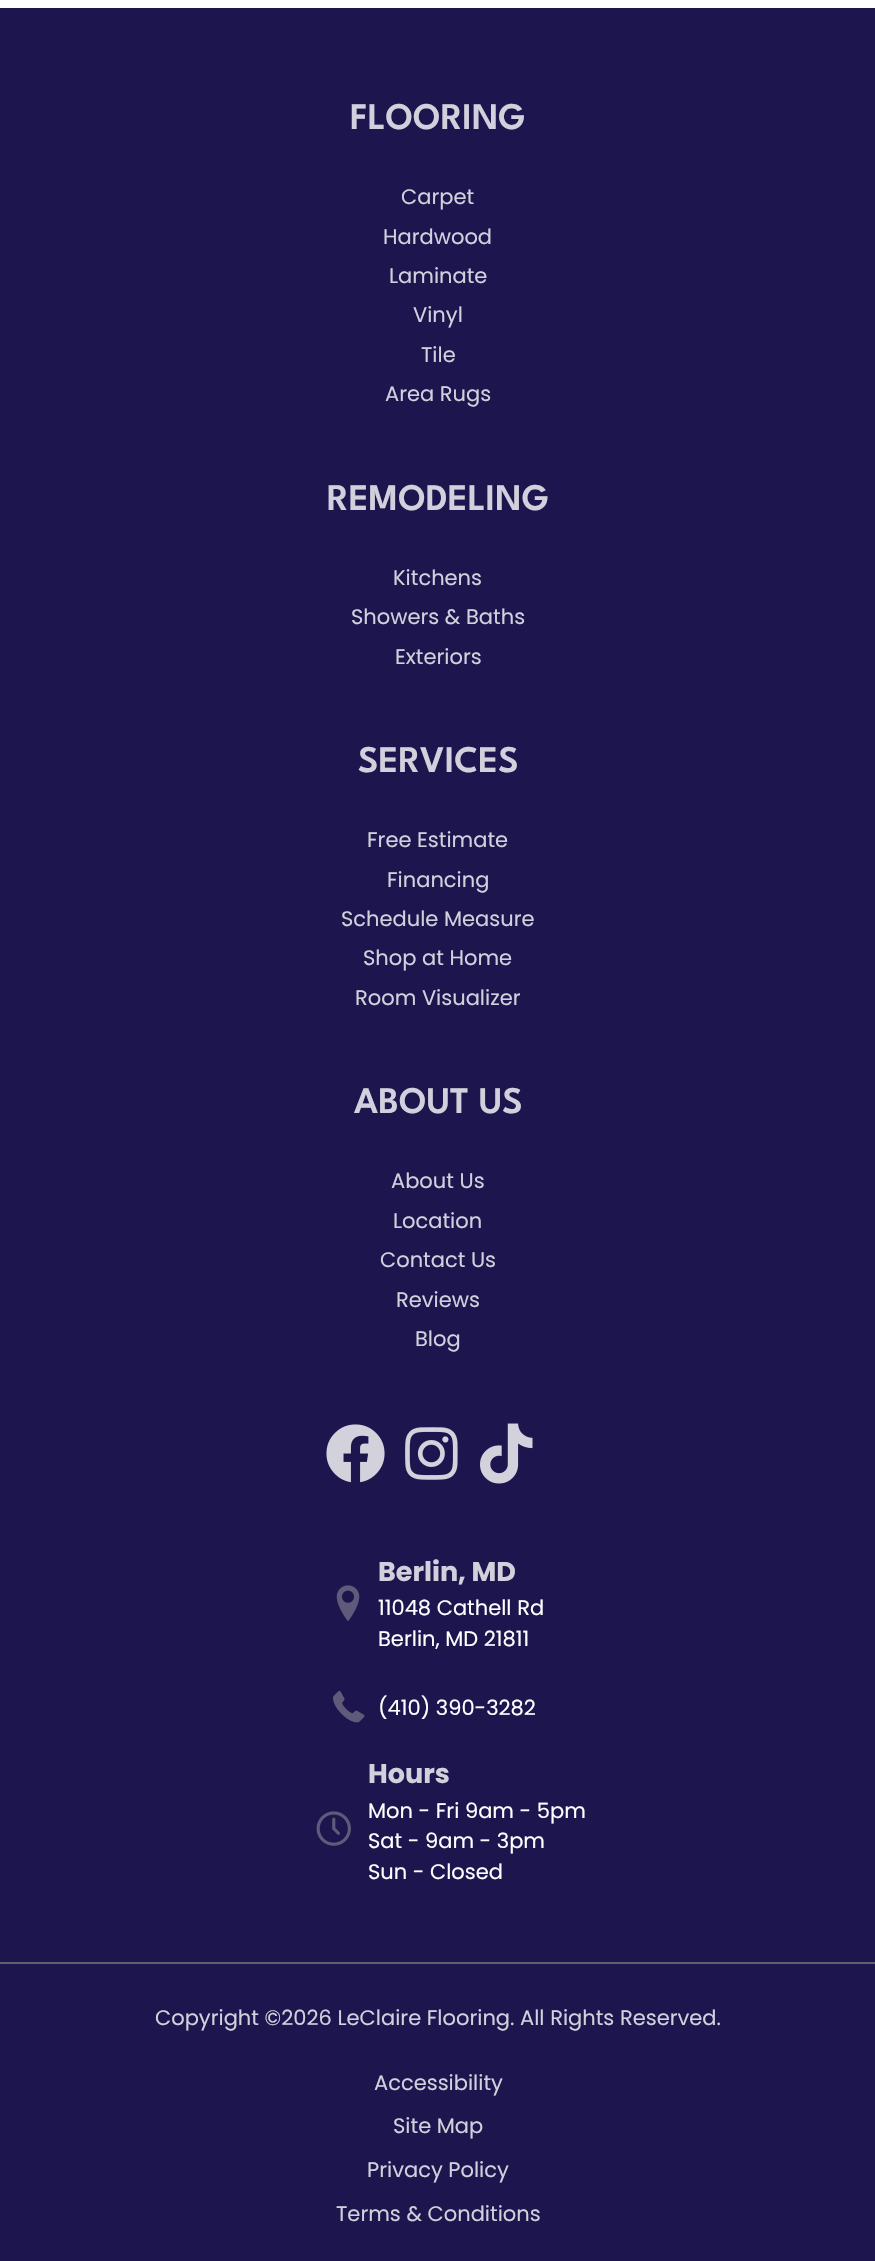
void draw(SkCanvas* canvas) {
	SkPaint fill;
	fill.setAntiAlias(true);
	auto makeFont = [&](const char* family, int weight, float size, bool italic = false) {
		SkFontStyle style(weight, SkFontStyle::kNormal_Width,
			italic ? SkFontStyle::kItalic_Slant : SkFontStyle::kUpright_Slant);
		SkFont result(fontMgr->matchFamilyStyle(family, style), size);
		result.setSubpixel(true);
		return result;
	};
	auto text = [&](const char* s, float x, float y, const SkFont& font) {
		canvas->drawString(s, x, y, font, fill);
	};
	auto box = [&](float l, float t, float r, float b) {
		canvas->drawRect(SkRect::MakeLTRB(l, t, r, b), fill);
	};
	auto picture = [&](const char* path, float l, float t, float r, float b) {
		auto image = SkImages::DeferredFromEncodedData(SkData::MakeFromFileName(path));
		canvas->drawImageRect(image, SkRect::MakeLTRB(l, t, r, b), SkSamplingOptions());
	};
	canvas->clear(0xFFFFFFFF);
	fill.setColor(0xFF1D154E);
	box(0, 8, 875, 1962);
	fill.setColor(0xFF5D6468);
	box(0, 1962, 875, 1964);
	picture("image0.png", 326, 1424, 385, 1483);
	picture("image1.png", 405, 1427, 458, 1480);
	picture("image2.png", 480, 1423, 533, 1484);
	picture("image3.png", 336, 1585, 360, 1621);
	picture("image4.png", 333, 1691, 365, 1723);
	picture("image5.png", 316, 1811, 351, 1846);
	fill.setColor(0xFF1D154E);
	box(0, 1964, 875, 2261);
	auto font1 = makeFont("League Spartan", 100, 37.5f);
	fill.setColor(0xFFD2D0DC);
	text("FLOORING", 350, 129, font1);
	auto font2 = makeFont("Poppins", 400, 21);
	text("Carpet", 401, 204, font2);
	text("Hardwood", 383, 244, font2);
	text("Laminate", 389, 283, font2);
	text("Vinyl", 413, 322, font2);
	text("Tile", 421, 362, font2);
	text("Area Rugs", 385, 401, font2);
	text("REMODELING", 327, 510, font1);
	text("Kitchens", 393, 585, font2);
	text("Showers & Baths", 351, 624, font2);
	text("Exteriors", 395, 664, font2);
	text("SERVICES", 358, 772, font1);
	text("Free Estimate", 367, 847, font2);
	text("Financing", 387, 887, font2);
	text("Schedule Measure", 341, 926, font2);
	text("Shop at Home", 363, 965, font2);
	text("Room Visualizer", 355, 1005, font2);
	text("ABOUT US", 354, 1113, font1);
	text("About Us", 391, 1188, font2);
	text("Location", 393, 1228, font2);
	text("Contact Us", 380, 1267, font2);
	text("Reviews", 396, 1307, font2);
	text("Blog", 415, 1346, font2);
	auto font3 = makeFont("Poppins", 700, 27);
	text("Berlin, MD", 378, 1581, font3);
	fill.setColor(0xFFFFFFFF);
	text("11048 Cathell Rd", 378, 1615, font2);
	text("Berlin, MD 21811", 378, 1646, font2);
	text("(410) 390-3282", 378, 1715, font2);
	fill.setColor(0xFFD2D0DC);
	text("Hours", 368, 1783, font3);
	fill.setColor(0xFFFFFFFF);
	text("Mon - Fri 9am - 5pm", 368, 1818, font2);
	text("Sat - 9am - 3pm", 368, 1848, font2);
	text("Sun - Closed", 368, 1879, font2);
	fill.setColor(0xFFD2D0DC);
	text("Copyright ©2026 LeClaire Flooring. All Rights Reserved.", 155, 2025, font2);
	text("Accessibility", 374, 2090, font2);
	text("Site Map", 393, 2133, font2);
	text("Privacy Policy", 367, 2177, font2);
	text("Terms & Conditions", 336, 2221, font2);
}
